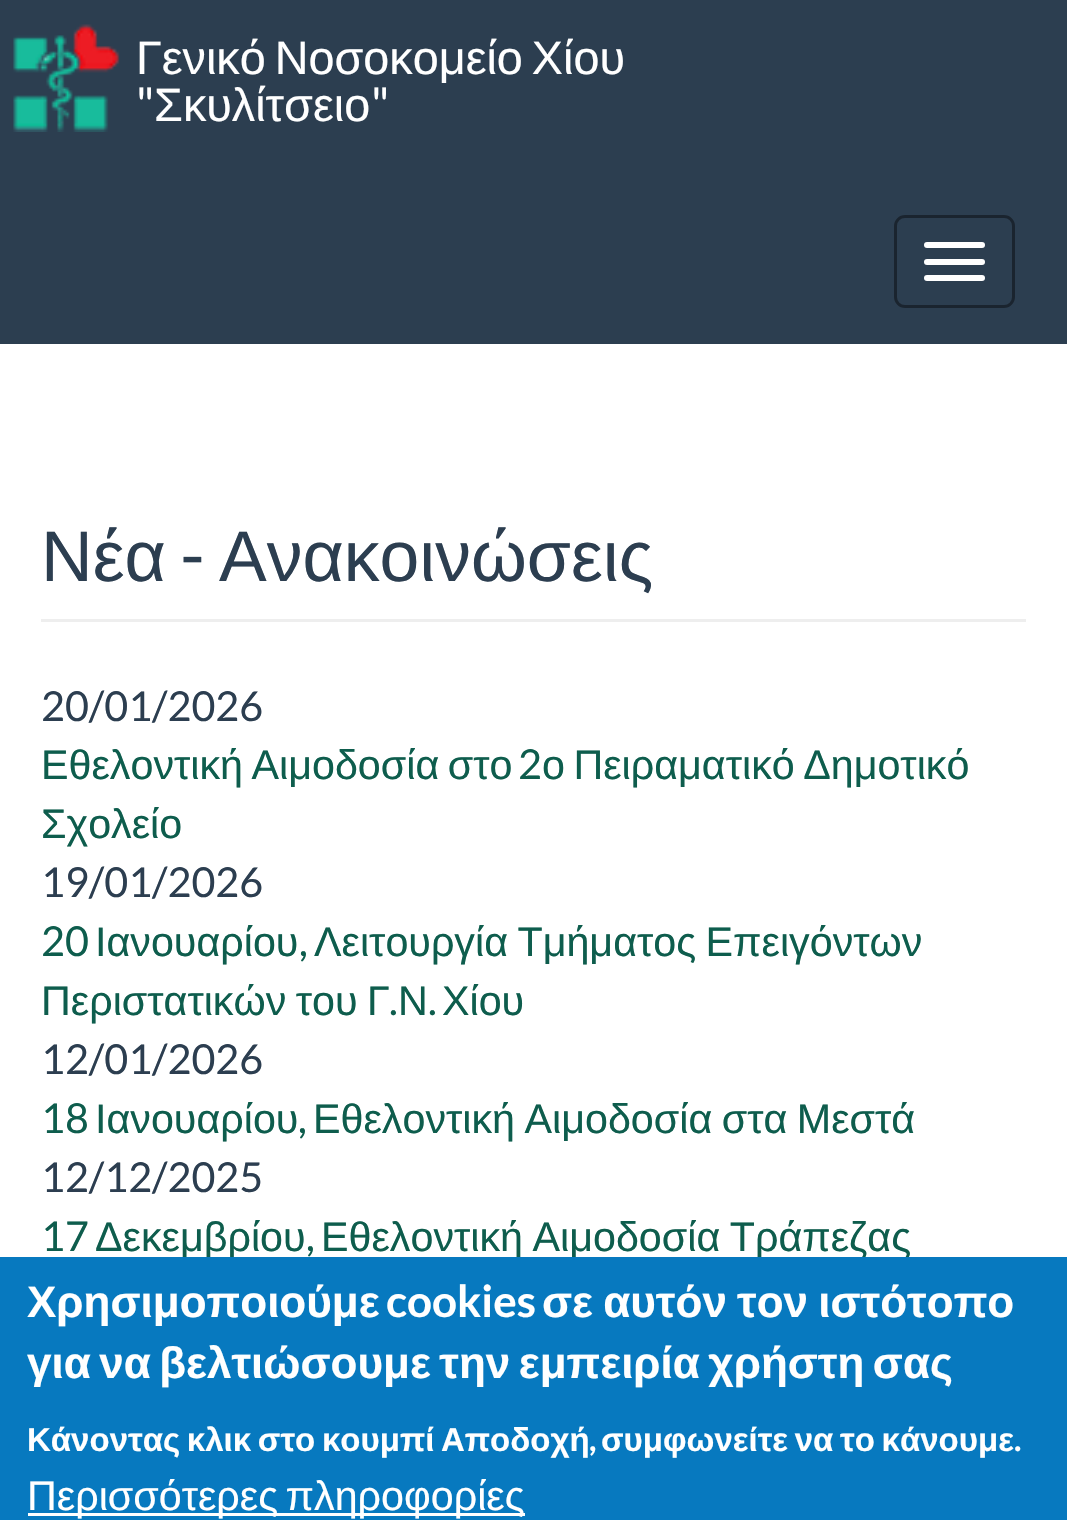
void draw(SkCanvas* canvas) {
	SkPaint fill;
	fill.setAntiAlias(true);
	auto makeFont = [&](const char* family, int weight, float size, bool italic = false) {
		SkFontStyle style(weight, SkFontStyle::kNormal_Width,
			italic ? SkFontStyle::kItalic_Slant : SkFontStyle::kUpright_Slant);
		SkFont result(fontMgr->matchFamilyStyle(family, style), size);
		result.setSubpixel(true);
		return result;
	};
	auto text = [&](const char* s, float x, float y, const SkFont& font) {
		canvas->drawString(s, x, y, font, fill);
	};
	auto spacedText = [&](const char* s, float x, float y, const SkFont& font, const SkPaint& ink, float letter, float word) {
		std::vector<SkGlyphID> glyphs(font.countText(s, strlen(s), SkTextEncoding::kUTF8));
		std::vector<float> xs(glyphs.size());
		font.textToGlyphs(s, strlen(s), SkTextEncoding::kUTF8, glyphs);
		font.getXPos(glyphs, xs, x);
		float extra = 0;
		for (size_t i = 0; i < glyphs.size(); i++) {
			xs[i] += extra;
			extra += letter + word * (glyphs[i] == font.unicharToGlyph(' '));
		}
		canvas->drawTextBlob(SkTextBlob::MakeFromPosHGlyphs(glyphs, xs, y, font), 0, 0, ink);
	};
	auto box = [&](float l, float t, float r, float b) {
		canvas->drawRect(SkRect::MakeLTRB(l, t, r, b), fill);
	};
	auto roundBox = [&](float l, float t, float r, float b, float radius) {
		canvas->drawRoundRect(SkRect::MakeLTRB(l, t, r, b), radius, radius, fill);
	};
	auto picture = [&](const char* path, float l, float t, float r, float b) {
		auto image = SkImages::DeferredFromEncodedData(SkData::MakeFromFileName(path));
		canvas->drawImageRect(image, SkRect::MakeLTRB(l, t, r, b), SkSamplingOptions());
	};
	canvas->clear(0xFFFFFFFF);
	fill.setColor(0xFF2C3E50);
	box(0, 0, 1067, 344);
	picture("image0.png", 13, 24, 120, 132);
	fill.setStyle(SkPaint::kStroke_Style);
	fill.setStrokeWidth(3);
	fill.setColor(0xFF1A242F);
	canvas->drawRoundRect(SkRect::MakeLTRB(895.5f, 216.5f, 1013.5f, 306.5f), 9.5f, 9.5f, fill);
	fill.setStyle(SkPaint::kFill_Style);
	fill.setColor(0xFFFFFFFF);
	roundBox(924, 242, 985, 248, 3);
	roundBox(924, 259, 985, 265, 3);
	roundBox(924, 275, 985, 281, 3);
	fill.setColor(0xFFEEEEEE);
	box(41, 619, 1026, 622);
	auto font1 = makeFont("Liberation Sans", 400, 46.75f);
	fill.setColor(0xFFFFFFFF);
	spacedText("Γενικό Νοσοκομείο Χίου", 136, 74, font1, fill, 0, -4);
	auto font2 = makeFont("Lato", 400, 46.75f);
	text("\"", 136, 121, font2);
	text("Σκυλίτσειο", 154, 121, font1);
	text("\"", 371, 121, font2);
	auto font3 = makeFont("Liberation Sans", 400, 71.5f);
	fill.setColor(0xFF2C3E50);
	text("Νέα", 41, 581, font3);
	auto font4 = makeFont("Lato", 400, 71.5f);
	text("-", 180, 581, font4);
	text("Ανακοινώσεις", 219, 581, font3);
	auto font5 = makeFont("Lato", 400, 41.25f);
	text("20/01/2026", 41, 721, font5);
	auto font6 = makeFont("Liberation Sans", 400, 41.25f);
	fill.setColor(0xFF0E5D4D);
	spacedText("Εθελοντική Αιμοδοσία στο", 41, 779, font6, fill, 0, -3);
	text("2", 518, 779, font5);
	spacedText("ο Πειραματικό Δημοτικό", 542, 779, font6, fill, 0, -3);
	text("Σχολείο", 41, 838, font6);
	fill.setColor(0xFF2C3E50);
	text("19/01/2026", 41, 897, font5);
	fill.setColor(0xFF0E5D4D);
	text("20", 41, 956, font5);
	text("Ιανουαρίου", 95, 956, font6);
	text(",", 299, 956, font5);
	spacedText("Λειτουργία Τμήματος Επειγόντων", 314, 956, font6, fill, 0, -2);
	spacedText("Περιστατικών του Γ", 41, 1015, font6, fill, 0, -2);
	text(".", 389, 1015, font5);
	text("Ν", 398, 1015, font6);
	text(".", 428, 1015, font5);
	text("Χίου", 442, 1015, font6);
	fill.setColor(0xFF2C3E50);
	text("12/01/2026", 41, 1074, font5);
	fill.setColor(0xFF0E5D4D);
	text("18", 41, 1133, font5);
	text("Ιανουαρίου", 95, 1133, font6);
	text(",", 298, 1133, font5);
	spacedText("Εθελοντική Αιμοδοσία στα Μεστά", 313, 1133, font6, fill, 0, -2);
	fill.setColor(0xFF2C3E50);
	text("12/12/2025", 41, 1192, font5);
	fill.setColor(0xFF0E5D4D);
	text("17", 41, 1251, font5);
	text("Δεκεμβρίου", 95, 1251, font6);
	text(",", 306, 1251, font5);
	spacedText("Εθελοντική Αιμοδοσία Τράπεζας", 321, 1251, font6, fill, 0, -2);
	fill.setColor(0xFF0779BF);
	box(0, 1257, 1067, 1520);
	auto font7 = makeFont("Liberation Sans", 700, 44);
	fill.setColor(0xFFFFFFFF);
	text("Χρησιμοποιούμε", 27, 1317, font7);
	auto font8 = makeFont("Lato", 700, 44);
	text("cookies", 386, 1317, font8);
	spacedText("σε αυτόν τον ιστότοπο", 542, 1317, font7, fill, 0, -2);
	spacedText("για να βελτιώσουμε την εμπειρία χρήστη σας", 27, 1378, font7, fill, 0, -3.75f);
	auto font9 = makeFont("Liberation Sans", 700, 33);
	spacedText("Κάνοντας κλικ στο κουμπί Αποδοχή", 27, 1451, font9, fill, 0, -2.5f);
	auto font10 = makeFont("Lato", 700, 33);
	text(",", 589, 1451, font10);
	spacedText("συμφωνείτε να το κάνουμε", 601, 1451, font9, fill, 0, -2.5f);
	text(".", 1014, 1451, font10);
	box(28, 1513, 525, 1516);
	spacedText("Περισσότερες πληροφορίες", 27, 1510, font6, fill, 0, -4);
}
